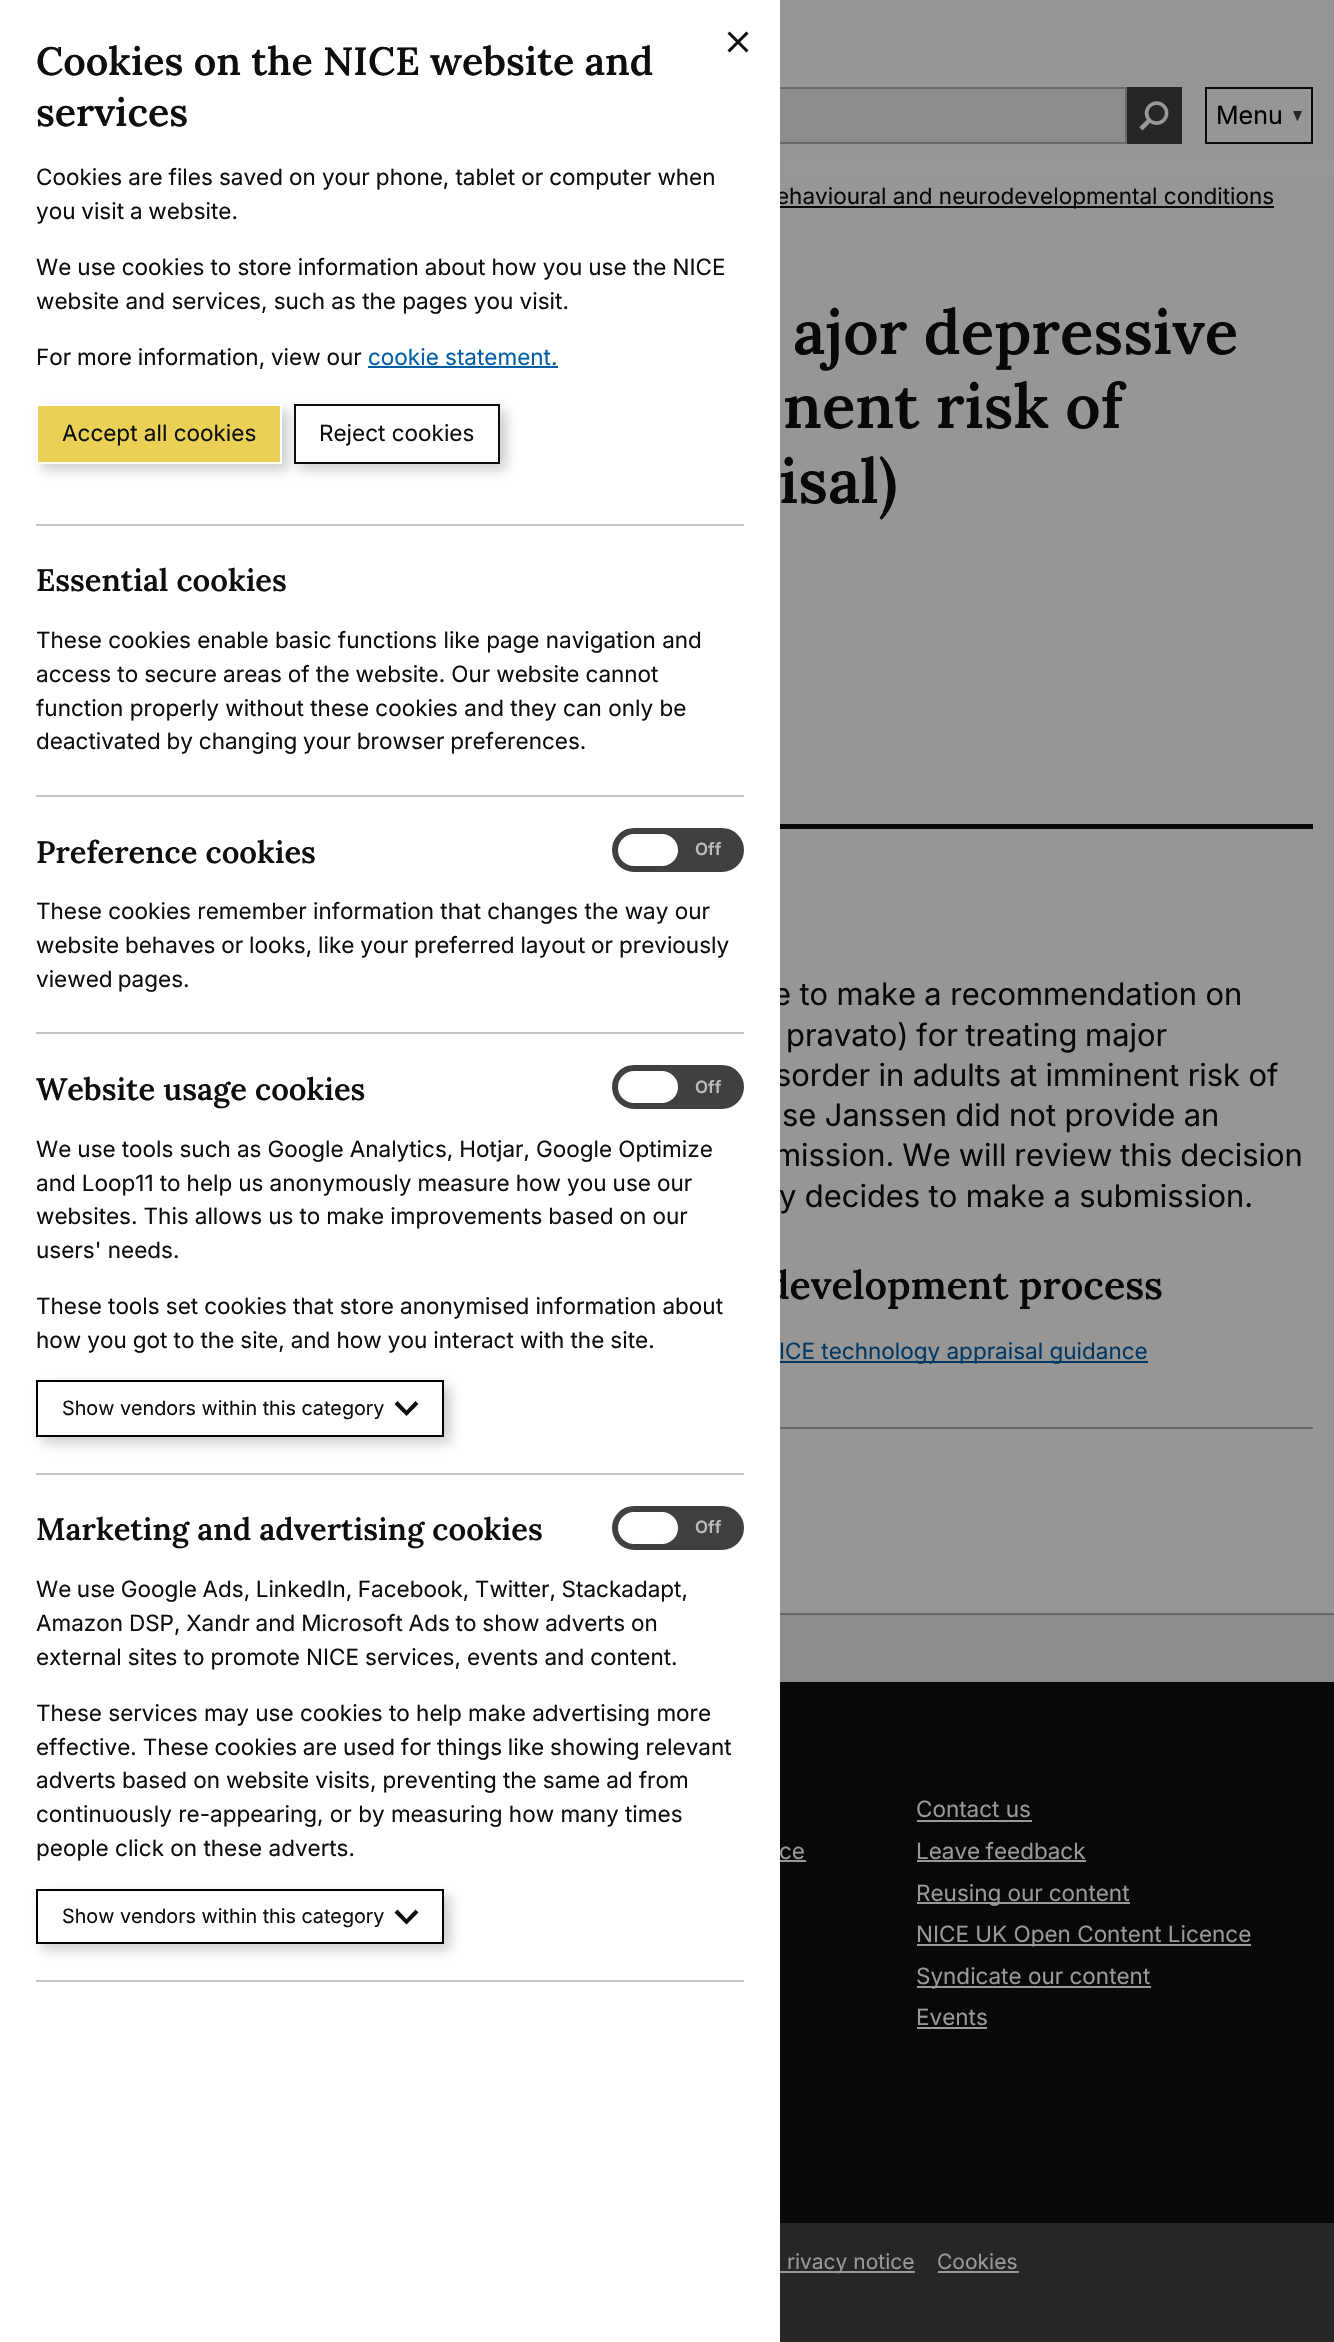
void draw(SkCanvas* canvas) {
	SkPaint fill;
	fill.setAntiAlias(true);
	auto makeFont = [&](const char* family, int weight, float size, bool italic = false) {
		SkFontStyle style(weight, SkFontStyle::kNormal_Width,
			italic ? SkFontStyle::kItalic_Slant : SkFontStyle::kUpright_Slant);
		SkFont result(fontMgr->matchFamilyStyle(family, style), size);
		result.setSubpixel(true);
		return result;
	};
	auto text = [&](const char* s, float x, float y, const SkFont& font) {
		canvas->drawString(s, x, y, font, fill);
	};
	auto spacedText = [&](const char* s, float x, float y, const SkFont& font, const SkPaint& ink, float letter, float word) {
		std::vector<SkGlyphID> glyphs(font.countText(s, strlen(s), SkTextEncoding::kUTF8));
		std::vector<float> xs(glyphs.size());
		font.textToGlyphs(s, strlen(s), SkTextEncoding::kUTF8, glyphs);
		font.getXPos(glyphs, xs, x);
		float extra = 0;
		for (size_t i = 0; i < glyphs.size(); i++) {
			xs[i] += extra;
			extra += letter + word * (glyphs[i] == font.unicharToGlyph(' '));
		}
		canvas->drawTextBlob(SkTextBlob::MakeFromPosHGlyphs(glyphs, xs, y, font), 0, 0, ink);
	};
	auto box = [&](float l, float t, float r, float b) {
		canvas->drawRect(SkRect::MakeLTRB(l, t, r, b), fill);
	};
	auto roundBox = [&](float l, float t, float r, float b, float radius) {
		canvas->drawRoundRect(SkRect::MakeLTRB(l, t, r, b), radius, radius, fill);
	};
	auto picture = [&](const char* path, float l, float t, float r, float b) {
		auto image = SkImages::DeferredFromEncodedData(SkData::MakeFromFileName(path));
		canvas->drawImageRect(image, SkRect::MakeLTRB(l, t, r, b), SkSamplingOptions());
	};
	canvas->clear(0xFF979695);
	fill.setColor(0xFF999999);
	box(780, 167, 1334, 169);
	fill.setColor(0xFF8C8C8C);
	box(780, 89, 1125, 142);
	fill.setStyle(SkPaint::kStroke_Style);
	fill.setStrokeWidth(2);
	fill.setColor(0xFF686868);
	canvas->drawRect(SkRect::MakeLTRB(24, 88, 1126, 143), fill);
	fill.setStyle(SkPaint::kFill_Style);
	fill.setColor(0xFF262626);
	box(1127, 87, 1182, 144);
	picture("image1.png", 1139, 101, 1169, 131);
	fill.setStyle(SkPaint::kStroke_Style);
	fill.setColor(0xFF080808);
	canvas->drawRect(SkRect::MakeLTRB(1206, 88, 1312, 143), fill);
	fill.setStyle(SkPaint::kFill_Style);
	fill.setColor(0xFF262626);
	canvas->drawPath(SkPathBuilder().moveTo(1293, 111).lineTo(1302, 111).lineTo(1297.5f, 121.5f).close().detach(), fill);
	fill.setColor(0xFF080808);
	box(780, 206, 1274, 208);
	box(780, 824, 1313, 829);
	fill.setColor(0xFF003863);
	box(780, 1361, 1148, 1363);
	fill.setColor(0xFF686868);
	box(780, 1427, 1313, 1429);
	fill.setColor(0xFF8C8C8C);
	box(780, 1615, 1334, 1682);
	fill.setColor(0xFF686868);
	box(780, 1613, 1334, 1615);
	fill.setColor(0xFF080808);
	box(780, 1682, 1334, 2223);
	fill.setColor(0xFF999999);
	box(917, 1820, 1032, 1822);
	box(780, 1860, 806, 1862);
	box(917, 1860, 1086, 1862);
	box(917, 1902, 1130, 1904);
	box(917, 1944, 1251, 1946);
	box(917, 1986, 1151, 1988);
	box(917, 2027, 987, 2029);
	fill.setColor(0xFF262626);
	box(780, 2223, 1334, 2342);
	fill.setColor(0xFF999999);
	box(774, 2271, 915, 2273);
	box(938, 2271, 1019, 2273);
	auto font1 = makeFont("Inter", 400, 25);
	fill.setColor(0xFF000000);
	text("Menu", 1216, 124, font1);
	auto font2 = makeFont("Inter", 400, 22.5f);
	fill.setColor(0xFF080808);
	text("ehavioural and neurodevelopmental conditions", 776, 204, font2);
	auto font3 = makeFont("Lora", 600, 62);
	text("ajor depressive", 793, 354, font3);
	text("nent risk of", 783, 428, font3);
	text("isal)", 779, 503, font3);
	auto font4 = makeFont("Inter", 400, 30.9f);
	spacedText("e to make a recommendation on", 773, 1005, font4, fill, 0, -0.25f);
	spacedText("pravato) for treating major", 786, 1046, font4, fill, 0, -1);
	spacedText("sorder in adults at imminent risk of", 775, 1086, font4, fill, 0, -0.25f);
	spacedText("se Janssen did not provide an", 782, 1126, font4, fill, 0, -0.25f);
	spacedText("mission. We will review this decision", 774, 1166, font4, fill, 0, -0.75f);
	spacedText("y decides to make a submission.", 779, 1207, font4, fill, 0, -0.25f);
	auto font5 = makeFont("Lora", 600, 39.4f);
	text("development process", 766, 1299, font5);
	fill.setColor(0xFFFFFFFF);
	box(0, 0, 780, 2342);
	picture("image0.png", 727, 31, 749, 53);
	fill.setColor(0xFF404040);
	canvas->drawRoundRect(SkRect::MakeLTRB(615, 1509, 741, 1547), 19, 19, fill);
	fill.setStyle(SkPaint::kStroke_Style);
	fill.setStrokeWidth(6);
	canvas->drawRoundRect(SkRect::MakeLTRB(615, 1509, 741, 1547), 19, 19, fill);
	fill.setStyle(SkPaint::kFill_Style);
	fill.setColor(0xFFFFFFFF);
	roundBox(618, 1512, 678, 1544, 16);
	fill.setColor(0xFF404040);
	canvas->drawRoundRect(SkRect::MakeLTRB(615, 1068, 741, 1106), 19, 19, fill);
	fill.setStyle(SkPaint::kStroke_Style);
	canvas->drawRoundRect(SkRect::MakeLTRB(615, 1068, 741, 1106), 19, 19, fill);
	fill.setStyle(SkPaint::kFill_Style);
	fill.setColor(0xFFFFFFFF);
	roundBox(618, 1071, 678, 1103, 16);
	fill.setColor(0xFF404040);
	canvas->drawRoundRect(SkRect::MakeLTRB(615, 831, 741, 869), 19, 19, fill);
	fill.setStyle(SkPaint::kStroke_Style);
	canvas->drawRoundRect(SkRect::MakeLTRB(615, 831, 741, 869), 19, 19, fill);
	fill.setStyle(SkPaint::kFill_Style);
	fill.setColor(0xFFFFFFFF);
	roundBox(618, 834, 678, 866, 16);
	auto font6 = makeFont("Inter", 600, 17);
	fill.setColor(0xFFBCBCBC);
	text("Off", 695, 1533, font6);
	text("Off", 695, 1093, font6);
	text("Off", 695, 855, font6);
	fill.setColor(0xFFC3C3C3);
	box(36, 1980, 744, 1982);
	canvas->save();
	canvas->clipPath(SkPathBuilder(SkPathFillType::kEvenOdd).moveTo(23, 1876).lineTo(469, 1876).lineTo(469, 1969).lineTo(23, 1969).close().moveTo(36, 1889).lineTo(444, 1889).lineTo(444, 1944).lineTo(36, 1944).close().detach(), true);
	fill.setColor(0x33000000);
	fill.setMaskFilter(SkMaskFilter::MakeBlur(kNormal_SkBlurStyle, 6));
	canvas->drawRect(SkRect::MakeLTRB(42, 1895, 450, 1950), fill);
	fill.setMaskFilter(nullptr);
	canvas->restore();
	fill.setStyle(SkPaint::kStroke_Style);
	fill.setStrokeWidth(2);
	fill.setColor(0xFF000000);
	canvas->drawRect(SkRect::MakeLTRB(37, 1890, 443, 1943), fill);
	fill.setStyle(SkPaint::kFill_Style);
	fill.setColor(0xFF0E0E0E);
	canvas->drawPath(SkPathBuilder().moveTo(394.5f, 1912.5f).lineTo(397.5f, 1909.5f).lineTo(406.5f, 1919).lineTo(415.5f, 1909.5f).lineTo(418.5f, 1912.5f).lineTo(406.5f, 1924.5f).close().detach(), fill);
	auto font7 = makeFont("Inter", 400, 19.75f);
	text("Show vendors within this category", 62, 1923, font7);
	text("people click on these adverts.", 36, 1856, font2);
	text("continuously re-appearing, or by measuring how many times", 36, 1822, font2);
	spacedText("adverts based on website visits, preventing the same ad from", 36, 1788, font2, fill, 0, -0.25f);
	spacedText("effective. These cookies are used for things like showing relevant", 36, 1755, font2, fill, 0, -0.5f);
	text("These services may use cookies to help make advertising more", 36, 1721, font2);
	spacedText("external sites to promote NICE services, events and content.", 36, 1665, font2, fill, 0, -0.25f);
	spacedText("Amazon DSP, Xandr and Microsoft Ads to show adverts on", 36, 1631, font2, fill, 0, -0.5f);
	spacedText("We use Google Ads, LinkedIn, Facebook, Twitter, Stackadapt,", 36, 1597, font2, fill, 0, -0.75f);
	auto font8 = makeFont("Lora", 600, 30.9f);
	text("Marketing and advertising cookies", 36, 1540, font8);
	fill.setColor(0xFFC3C3C3);
	box(36, 1473, 744, 1475);
	canvas->save();
	canvas->clipPath(SkPathBuilder(SkPathFillType::kEvenOdd).moveTo(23, 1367).lineTo(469, 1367).lineTo(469, 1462).lineTo(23, 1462).close().moveTo(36, 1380).lineTo(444, 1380).lineTo(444, 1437).lineTo(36, 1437).close().detach(), true);
	fill.setColor(0x33000000);
	fill.setMaskFilter(SkMaskFilter::MakeBlur(kNormal_SkBlurStyle, 6));
	canvas->drawRect(SkRect::MakeLTRB(42, 1386, 450, 1443), fill);
	fill.setMaskFilter(nullptr);
	canvas->restore();
	fill.setStyle(SkPaint::kStroke_Style);
	fill.setColor(0xFF000000);
	canvas->drawRect(SkRect::MakeLTRB(37, 1381, 443, 1436), fill);
	fill.setStyle(SkPaint::kFill_Style);
	fill.setColor(0xFF0E0E0E);
	canvas->drawPath(SkPathBuilder().moveTo(394.5f, 1404).lineTo(397.5f, 1401).lineTo(406.5f, 1410.5f).lineTo(415.5f, 1401).lineTo(418.5f, 1404).lineTo(406.5f, 1416).close().detach(), fill);
	text("Show vendors within this category", 62, 1415, font7);
	spacedText("how you got to the site, and how you interact with the site.", 36, 1348, font2, fill, 0, -0.25f);
	spacedText("These tools set cookies that store anonymised information about", 36, 1314, font2, fill, 0, -0.25f);
	text("users' needs.", 36, 1258, font2);
	spacedText("websites. This allows us to make improvements based on our", 36, 1224, font2, fill, 0, -0.25f);
	spacedText("and Loop11 to help us anonymously measure how you use our", 36, 1191, font2, fill, 0, -0.25f);
	spacedText("We use tools such as Google Analytics, Hotjar, Google Optimize", 36, 1157, font2, fill, 0, -0.25f);
	text("Website usage cookies", 36, 1100, font8);
	fill.setColor(0xFFC3C3C3);
	box(36, 1032, 744, 1034);
	fill.setColor(0xFF0E0E0E);
	spacedText("viewed pages.", 36, 987, font2, fill, 0, -1);
	spacedText("website behaves or looks, like your preferred layout or previously", 36, 953, font2, fill, 0, -0.5f);
	text("These cookies remember information that changes the way our", 36, 919, font2);
	text("Preference cookies", 36, 863, font8);
	fill.setColor(0xFFC3C3C3);
	box(36, 795, 744, 797);
	box(36, 524, 744, 526);
	fill.setColor(0xFF0E0E0E);
	spacedText("deactivated by changing your browser preferences.", 36, 749, font2, fill, 0, -0.5f);
	text("function properly without these cookies and they can only be", 36, 716, font2);
	spacedText("access to secure areas of the website. Our website cannot", 36, 682, font2, fill, 0, -0.25f);
	text("These cookies enable basic functions like page navigation and", 36, 648, font2);
	text("Essential cookies", 36, 591, font8);
	fill.setColor(0x33000000);
	fill.setMaskFilter(SkMaskFilter::MakeBlur(kNormal_SkBlurStyle, 6));
	canvas->drawRect(SkRect::MakeLTRB(42, 410, 288, 470), fill);
	fill.setMaskFilter(nullptr);
	fill.setColor(0xFFEAD054);
	canvas->drawRect(SkRect::MakeLTRB(37, 405, 281, 463), fill);
	fill.setStyle(SkPaint::kStroke_Style);
	fill.setColor(0xFFFFFFFF);
	canvas->drawRect(SkRect::MakeLTRB(37, 405, 281, 463), fill);
	fill.setStyle(SkPaint::kFill_Style);
	fill.setColor(0x33000000);
	fill.setMaskFilter(SkMaskFilter::MakeBlur(kNormal_SkBlurStyle, 6));
	canvas->drawRect(SkRect::MakeLTRB(300, 410, 506, 470), fill);
	fill.setMaskFilter(nullptr);
	fill.setColor(0xFFFFFFFF);
	canvas->drawRect(SkRect::MakeLTRB(295, 405, 499, 463), fill);
	fill.setStyle(SkPaint::kStroke_Style);
	fill.setColor(0xFF0E0E0E);
	canvas->drawRect(SkRect::MakeLTRB(295, 405, 499, 463), fill);
	fill.setStyle(SkPaint::kFill_Style);
	text("Reject cookies", 319, 441, font2);
	text("Accept all cookies", 62, 441, font2);
	fill.setColor(0xFF005EA5);
	text("cookie statement.", 368, 365, font2);
	box(368, 366, 558, 368);
	fill.setColor(0xFF0E0E0E);
	spacedText("For more information, view our", 36, 365, font2, fill, 0, -0.5f);
	text("website and services, such as the pages you visit.", 36, 309, font2);
	spacedText("We use cookies to store information about how you use the NICE", 36, 275, font2, fill, 0, -0.25f);
	spacedText("you visit a website.", 36, 219, font2, fill, 0, -0.5f);
	spacedText("Cookies are files saved on your phone, tablet or computer when", 36, 185, font2, fill, 0, -0.25f);
	text("services", 36, 126, font5);
	text("Cookies on the NICE website and", 36, 75, font5);
	fill.setColor(0xFF003863);
	text("ICE technology appraisal guidance", 779, 1359, font2);
	fill.setColor(0xFF999999);
	text("Contact us", 916, 1817, font2);
	text("ce", 779, 1859, font2);
	spacedText("Leave feedback", 916, 1859, font2, fill, 0, -1);
	spacedText("Reusing our content", 916, 1901, font2, fill, 0, -0.25f);
	text("NICE UK Open Content Licence", 916, 1942, font2);
	text("Syndicate our content", 916, 1984, font2);
	text("Events", 916, 2025, font2);
	auto font9 = makeFont("Inter", 400, 21);
	text("rivacy notice", 787, 2269, font9);
	text("Cookies", 937, 2269, font9);
}
